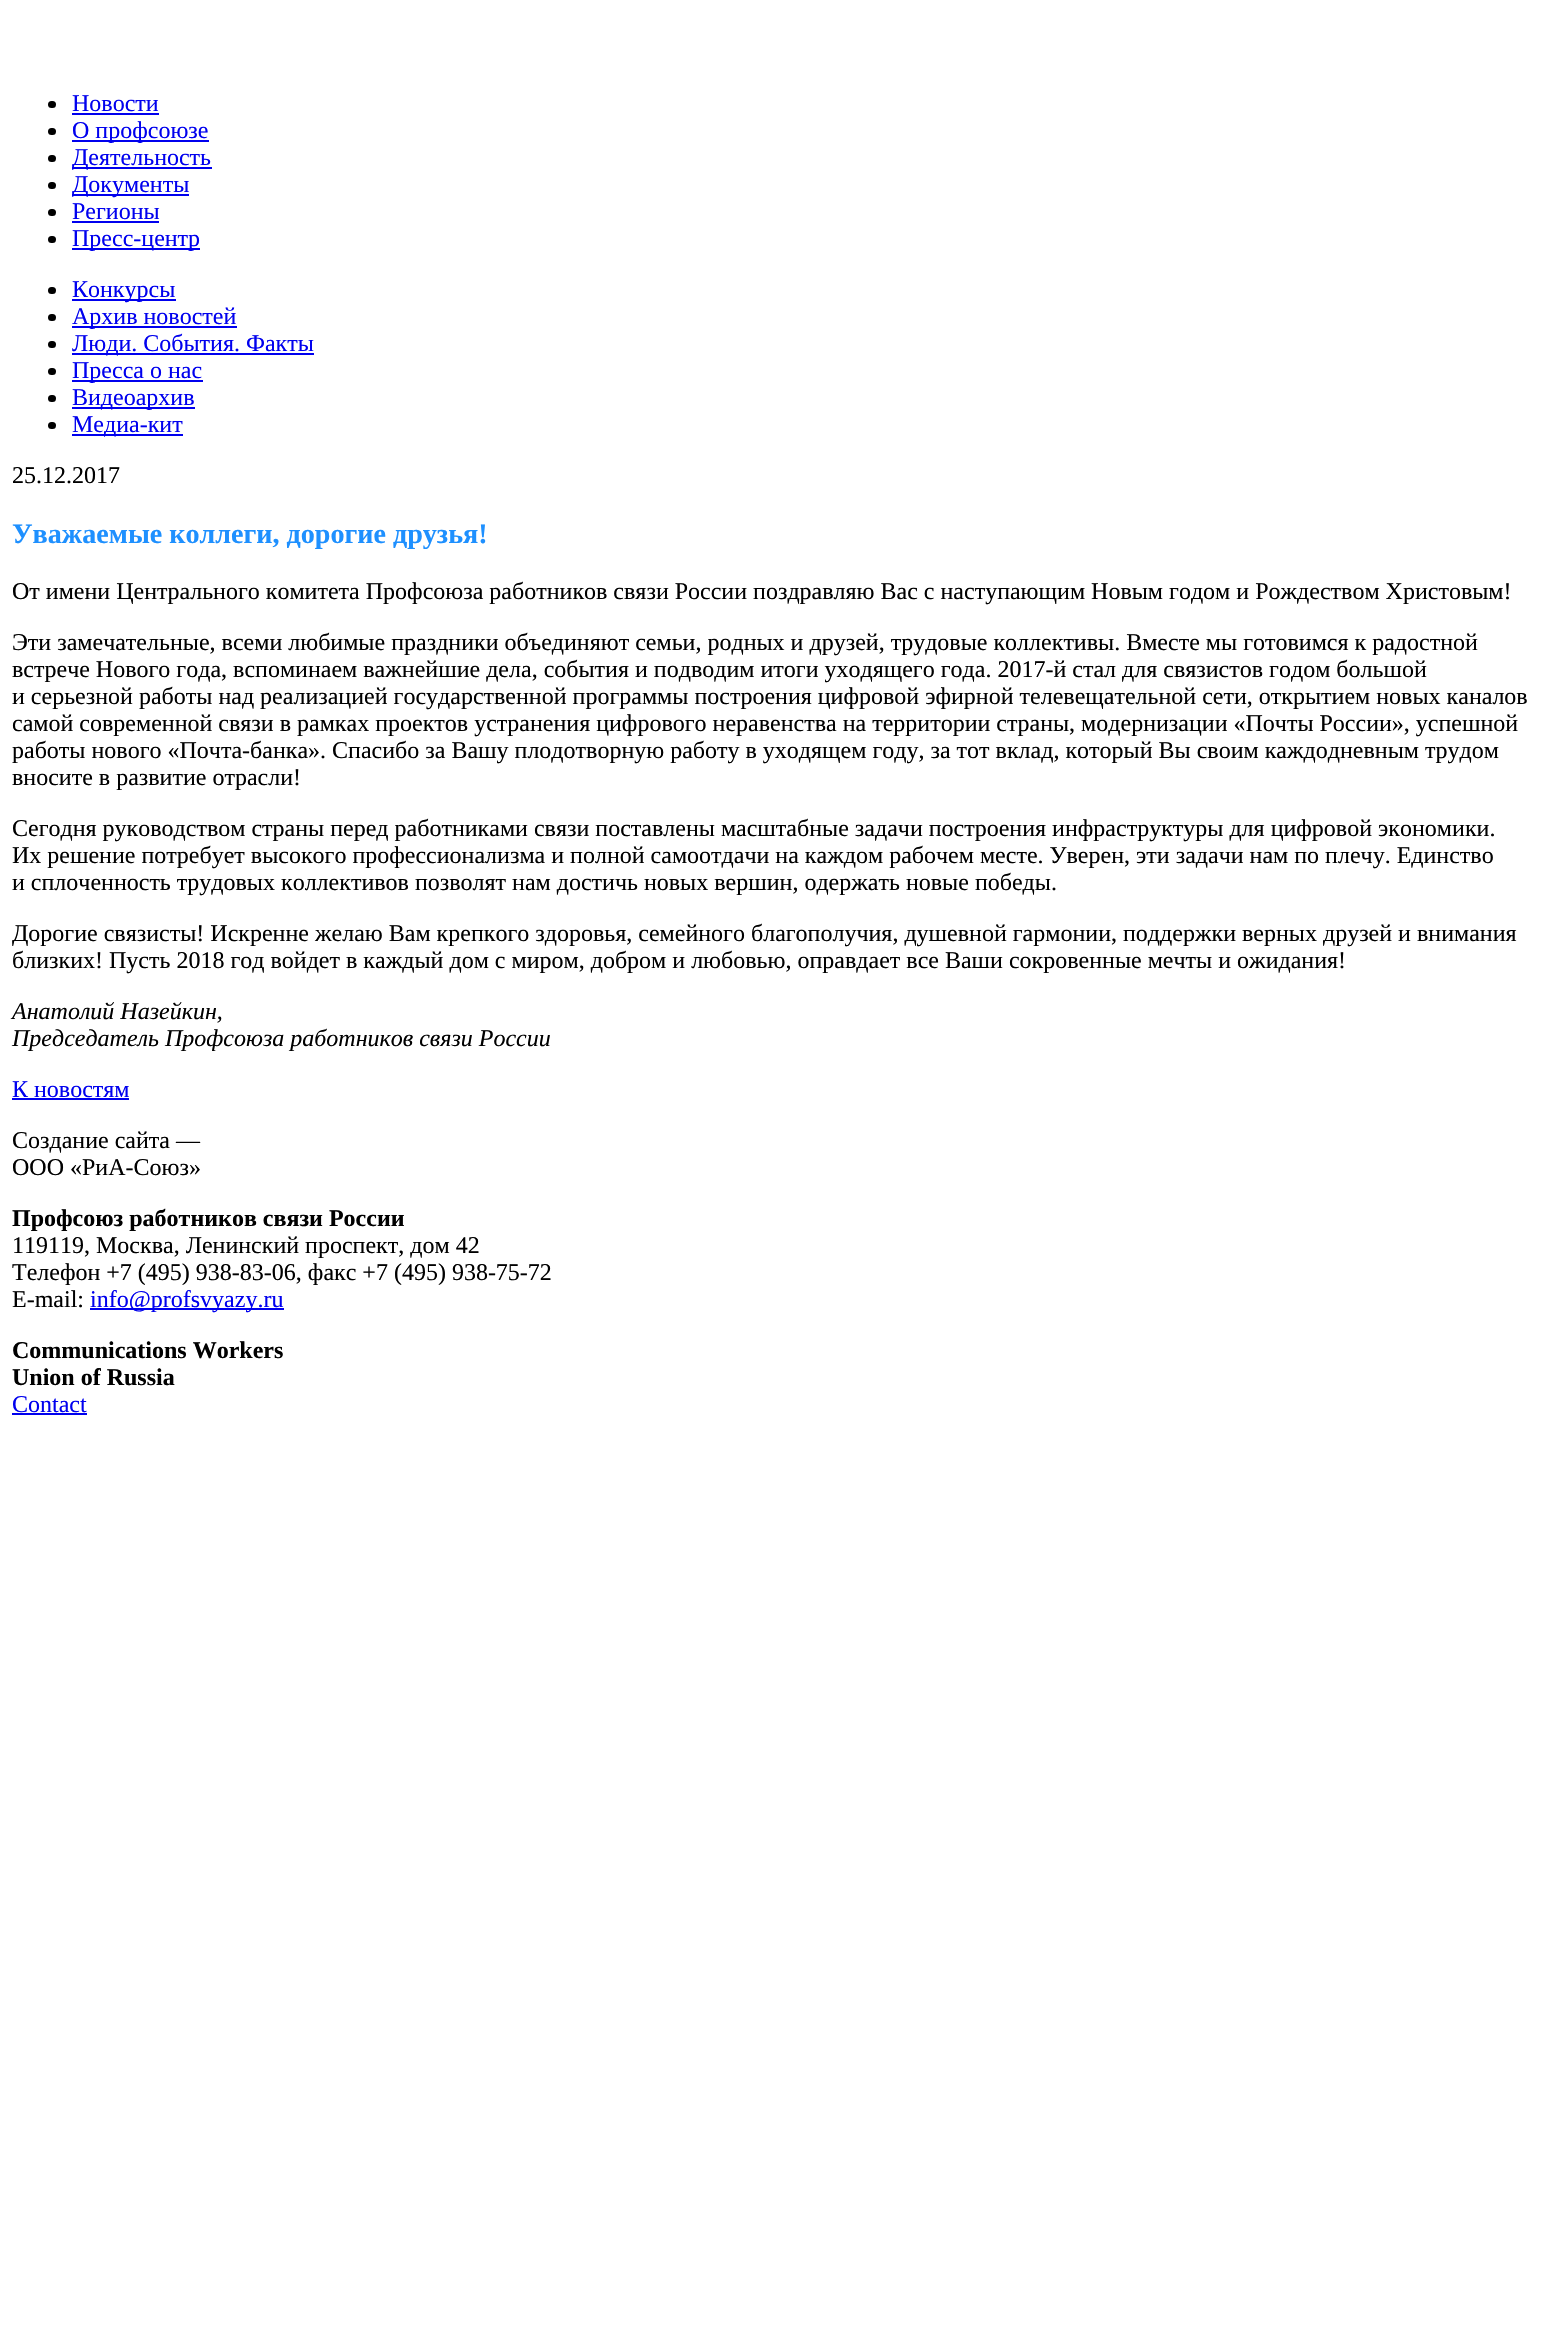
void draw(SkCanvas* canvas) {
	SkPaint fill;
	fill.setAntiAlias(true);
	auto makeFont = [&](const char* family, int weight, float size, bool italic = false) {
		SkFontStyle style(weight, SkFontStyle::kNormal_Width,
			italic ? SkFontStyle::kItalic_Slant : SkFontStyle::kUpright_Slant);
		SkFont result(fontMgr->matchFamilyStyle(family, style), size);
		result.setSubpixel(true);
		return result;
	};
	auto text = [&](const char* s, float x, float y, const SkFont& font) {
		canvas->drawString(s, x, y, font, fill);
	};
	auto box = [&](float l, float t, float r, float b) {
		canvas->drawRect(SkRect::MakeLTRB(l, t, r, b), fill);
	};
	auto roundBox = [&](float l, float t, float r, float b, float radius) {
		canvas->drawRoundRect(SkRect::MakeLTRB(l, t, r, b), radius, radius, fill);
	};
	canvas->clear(0xFFFFFFFF);
	fill.setColor(0xFF000000);
	roundBox(48, 101, 56, 108, 3.5f);
	fill.setColor(0xFF0000EE);
	box(72, 113, 159, 115);
	fill.setColor(0xFF000000);
	roundBox(48, 128, 56, 135, 3.5f);
	fill.setColor(0xFF0000EE);
	box(72, 140, 209, 142);
	fill.setColor(0xFF000000);
	roundBox(48, 155, 56, 162, 3.5f);
	fill.setColor(0xFF0000EE);
	box(72, 167, 212, 169);
	fill.setColor(0xFF000000);
	roundBox(48, 182, 56, 189, 3.5f);
	fill.setColor(0xFF0000EE);
	box(72, 194, 189, 196);
	fill.setColor(0xFF000000);
	roundBox(48, 209, 56, 216, 3.5f);
	fill.setColor(0xFF0000EE);
	box(72, 221, 159, 223);
	fill.setColor(0xFF000000);
	roundBox(48, 236, 56, 243, 3.5f);
	fill.setColor(0xFF0000EE);
	box(72, 248, 200, 250);
	fill.setColor(0xFF000000);
	roundBox(48, 287, 56, 294, 3.5f);
	fill.setColor(0xFF0000EE);
	box(72, 299, 176, 301);
	fill.setColor(0xFF000000);
	roundBox(48, 314, 56, 321, 3.5f);
	fill.setColor(0xFF0000EE);
	box(72, 326, 237, 328);
	fill.setColor(0xFF000000);
	roundBox(48, 341, 56, 348, 3.5f);
	fill.setColor(0xFF0000EE);
	box(72, 353, 314, 355);
	fill.setColor(0xFF000000);
	roundBox(48, 368, 56, 375, 3.5f);
	fill.setColor(0xFF0000EE);
	box(72, 380, 203, 382);
	fill.setColor(0xFF000000);
	roundBox(48, 395, 56, 402, 3.5f);
	fill.setColor(0xFF0000EE);
	box(72, 407, 195, 409);
	fill.setColor(0xFF000000);
	roundBox(48, 422, 56, 429, 3.5f);
	fill.setColor(0xFF0000EE);
	box(72, 434, 183, 436);
	box(12, 1098, 129, 1100);
	box(90, 1308, 284, 1310);
	box(12, 1413, 87, 1415);
	auto font1 = makeFont("Liberation Serif", 400, 24);
	text("Новости", 72, 111, font1);
	text("О профсоюзе", 72, 138, font1);
	text("Деятельность", 72, 165, font1);
	text("Документы", 72, 192, font1);
	text("Регионы", 72, 219, font1);
	text("Пресс-центр", 72, 246, font1);
	text("Конкурсы", 72, 297, font1);
	text("Архив новостей", 72, 324, font1);
	text("Люди. События. Факты", 72, 351, font1);
	text("Пресса о нас", 72, 378, font1);
	text("Видеоархив", 72, 405, font1);
	text("Медиа-кит", 72, 432, font1);
	fill.setColor(0xFF000000);
	text("25.12.2017", 12, 483, font1);
	auto font2 = makeFont("Liberation Serif", 700, 28.1f);
	fill.setColor(0xFF1E90FF);
	text("Уважаемые коллеги, дорогие друзья!", 12, 543, font2);
	fill.setColor(0xFF000000);
	text("От имени Центрального комитета Профсоюза работников связи России поздравляю Вас с наступающим Новым годом и Рождеством Христовым!", 12, 599, font1);
	text("Эти замечательные, всеми любимые праздники объединяют семьи, родных и друзей, трудовые коллективы. Вместе мы готовимся к радостной", 12, 650, font1);
	text("встрече Нового года, вспоминаем важнейшие дела, события и подводим итоги уходящего года. 2017-й стал для связистов годом большой", 12, 677, font1);
	text("и серьезной работы над реализацией государственной программы построения цифровой эфирной телевещательной сети, открытием новых каналов", 12, 704, font1);
	text("самой современной связи в рамках проектов устранения цифрового неравенства на территории страны, модернизации «Почты России», успешной", 12, 731, font1);
	text("работы нового «Почта-банка». Спасибо за Вашу плодотворную работу в уходящем году, за тот вклад, который Вы своим каждодневным трудом", 12, 758, font1);
	text("вносите в развитие отрасли!", 12, 785, font1);
	text("Сегодня руководством страны перед работниками связи поставлены масштабные задачи построения инфраструктуры для цифровой экономики.", 12, 836, font1);
	text("Их решение потребует высокого профессионализма и полной самоотдачи на каждом рабочем месте. Уверен, эти задачи нам по плечу. Единство", 12, 863, font1);
	text("и сплоченность трудовых коллективов позволят нам достичь новых вершин, одержать новые победы.", 12, 890, font1);
	text("Дорогие связисты! Искренне желаю Вам крепкого здоровья, семейного благополучия, душевной гармонии, поддержки верных друзей и внимания", 12, 941, font1);
	text("близких! Пусть 2018 год войдет в каждый дом с миром, добром и любовью, оправдает все Ваши сокровенные мечты и ожидания!", 12, 968, font1);
	auto font3 = makeFont("Liberation Serif", 400, 24, true);
	text("Анатолий Назейкин,", 12, 1019, font3);
	text("Председатель Профсоюза работников связи России", 12, 1046, font3);
	fill.setColor(0xFF0000EE);
	text("К новостям", 12, 1097, font1);
	fill.setColor(0xFF000000);
	text("Создание сайта —", 12, 1148, font1);
	text("ООО «РиА-Союз»", 12, 1175, font1);
	auto font4 = makeFont("Liberation Serif", 700, 24);
	text("Профсоюз работников связи России", 12, 1226, font4);
	text("119119, Москва, Ленинский проспект, дом 42", 12, 1253, font1);
	text("Телефон +7 (495) 938-83-06, факс +7 (495) 938-75-72", 12, 1280, font1);
	text("E-mail:", 12, 1307, font1);
	fill.setColor(0xFF0000EE);
	text("info@profsvyazy.ru", 90, 1307, font1);
	fill.setColor(0xFF000000);
	text("Communications Workers", 12, 1358, font4);
	text("Union of Russia", 12, 1385, font4);
	fill.setColor(0xFF0000EE);
	text("Contact", 12, 1412, font1);
}
